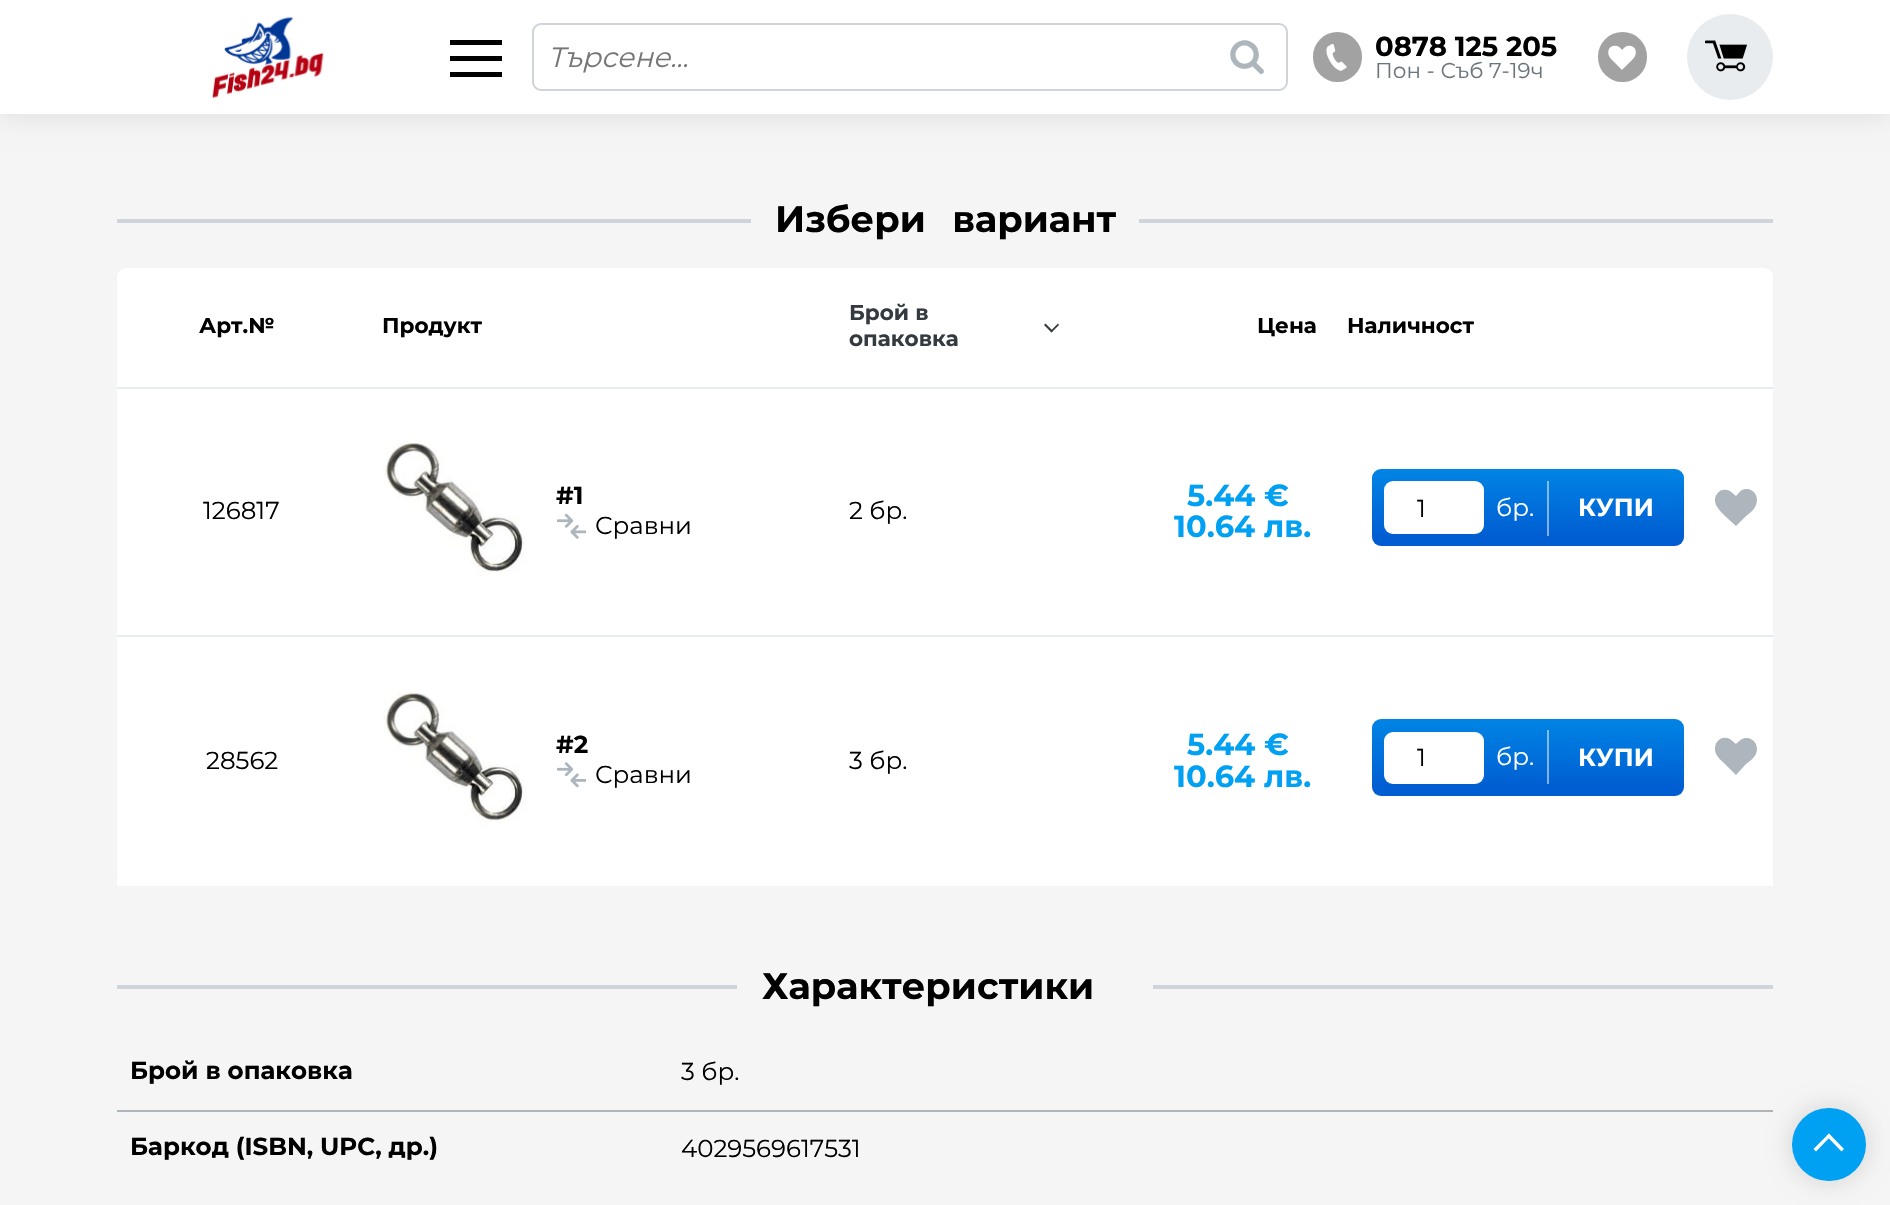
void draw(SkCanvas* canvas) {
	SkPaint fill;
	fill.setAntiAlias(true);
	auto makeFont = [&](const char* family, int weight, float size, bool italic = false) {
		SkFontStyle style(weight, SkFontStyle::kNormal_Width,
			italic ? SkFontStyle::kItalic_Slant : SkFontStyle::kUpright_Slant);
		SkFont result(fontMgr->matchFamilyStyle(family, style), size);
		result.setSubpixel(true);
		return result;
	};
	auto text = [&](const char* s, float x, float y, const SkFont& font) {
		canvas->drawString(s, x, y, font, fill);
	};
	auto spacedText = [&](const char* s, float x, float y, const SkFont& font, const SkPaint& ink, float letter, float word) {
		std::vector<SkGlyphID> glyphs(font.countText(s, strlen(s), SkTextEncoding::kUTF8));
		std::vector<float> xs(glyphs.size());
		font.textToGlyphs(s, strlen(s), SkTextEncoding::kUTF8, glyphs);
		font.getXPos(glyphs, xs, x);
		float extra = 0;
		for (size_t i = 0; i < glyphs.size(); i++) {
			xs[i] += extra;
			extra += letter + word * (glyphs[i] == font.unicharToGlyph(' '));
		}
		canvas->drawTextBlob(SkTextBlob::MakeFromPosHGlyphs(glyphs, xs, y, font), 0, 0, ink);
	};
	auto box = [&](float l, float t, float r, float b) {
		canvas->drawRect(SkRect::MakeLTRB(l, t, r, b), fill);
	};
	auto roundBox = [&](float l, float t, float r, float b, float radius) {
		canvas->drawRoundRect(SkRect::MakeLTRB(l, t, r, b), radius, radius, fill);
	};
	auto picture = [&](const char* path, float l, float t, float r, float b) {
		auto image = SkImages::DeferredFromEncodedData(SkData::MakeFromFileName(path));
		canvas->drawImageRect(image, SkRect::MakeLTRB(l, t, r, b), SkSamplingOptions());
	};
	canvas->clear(0xFFF5F5F5);
	fill.setColor(0x1A000000);
	fill.setMaskFilter(SkMaskFilter::MakeBlur(kNormal_SkBlurStyle, 13));
	canvas->drawRect(SkRect::MakeLTRB(0, 0, 1890, 114), fill);
	fill.setMaskFilter(nullptr);
	fill.setColor(0xFFFFFFFF);
	box(0, 0, 1890, 114);
	picture("image0.png", 212, 16, 324, 98);
	fill.setColor(0xFF000000);
	box(450, 56, 502, 61);
	box(450, 40, 502, 45);
	box(450, 72, 502, 77);
	fill.setStyle(SkPaint::kStroke_Style);
	fill.setStrokeWidth(2);
	fill.setColor(0xFFCED4DA);
	canvas->drawRoundRect(SkRect::MakeLTRB(533, 24, 1287, 90), 8, 8, fill);
	picture("image1.png", 1230, 40, 1264, 74);
	fill.setStyle(SkPaint::kFill_Style);
	fill.setColor(0xFFA2A2A2);
	roundBox(1313, 32, 1362, 82, 24.5f);
	picture("image2.png", 1326, 44, 1347, 71);
	roundBox(1598, 32, 1647, 82, 24.5f);
	picture("image3.png", 1608, 45, 1636, 70);
	fill.setColor(0xFFE9ECEF);
	canvas->drawCircle(1730, 57, 43, fill);
	picture("image4.png", 1705, 40, 1747, 72);
	fill.setColor(0xFFCED4DA);
	box(117, 219, 751, 223);
	box(1139, 219, 1773, 223);
	fill.setColor(0xFFFFFFFF);
	roundBox(117, 268, 1773, 886, 9);
	fill.setColor(0xFFE9ECEF);
	box(117, 387, 1773, 389);
	fill.setColor(0xFF343A40);
	canvas->drawPath(SkPathBuilder().moveTo(1058, 323.5f).lineTo(1059, 325).lineTo(1051.5f, 332.5f).lineTo(1050.5f, 331).close().detach(), fill);
	canvas->drawPath(SkPathBuilder().moveTo(1045.5f, 323.5f).lineTo(1053, 331).lineTo(1051.5f, 332.5f).lineTo(1044, 325).close().detach(), fill);
	fill.setColor(0xFFE9ECEF);
	box(117, 635, 1773, 637);
	picture("image5.png", 383, 436, 526, 580);
	picture("image6.png", 557, 513, 586, 539);
	{
		const SkColor colors[] = {0xFF005ED2, 0xFF00A0F2};
		const float stops[] = {0.2f, 1};
		const SkPoint ends[] = {{1528, 565}, {1528, 421}};
		fill.setShader(SkGradientShader::MakeLinear(ends, colors, stops, 2, SkTileMode::kClamp));
		fill.setAlpha(255);
	}
	roundBox(1372, 469, 1684, 546, 9);
	{
		const SkColor colors[] = {0xFF80AFE9, 0xFF80D0F9};
		const float stops[] = {0.2f, 1};
		const SkPoint ends[] = {{1528, 565}, {1528, 421}};
		fill.setShader(SkGradientShader::MakeLinear(ends, colors, stops, 2, SkTileMode::kClamp));
		fill.setAlpha(255);
	}
	box(1547, 481, 1549, 536);
	fill.setShader(nullptr);
	fill.setColor(0xFFFFFFFF);
	roundBox(1384, 481, 1484, 534, 9);
	fill.setColor(0xFFADB5BD);
	canvas->drawPath(SkPathBuilder().moveTo(1736, 526).lineTo(1725, 516).cubicTo(1722, 513, 1718, 509, 1716, 505).cubicTo(1712, 496, 1720, 486, 1730, 491).lineTo(1736, 496).cubicTo(1738, 494, 1740, 491, 1742, 490).cubicTo(1752, 486, 1760, 496, 1756, 505).cubicTo(1754, 510, 1750, 513, 1746, 516).close().detach(), fill);
	{
		const SkColor colors[] = {0x0D00A0F2, 0xFFFFFFFF, 0xFFFFFFFF};
		const float stops[] = {0, 0.5f, 1};
		const SkPoint ends[] = {{-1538, 761}, {1773, 761}};
		fill.setShader(SkGradientShader::MakeLinear(ends, colors, stops, 3, SkTileMode::kClamp));
		fill.setAlpha(255);
	}
	box(117, 879, 1773, 886);
	picture("image7.png", 383, 686, 526, 828);
	picture("image8.png", 557, 762, 586, 788);
	{
		const SkColor colors[] = {0xFF005ED2, 0xFF00A0F2};
		const float stops[] = {0.2f, 1};
		const SkPoint ends[] = {{1528, 816}, {1528, 671}};
		fill.setShader(SkGradientShader::MakeLinear(ends, colors, stops, 2, SkTileMode::kClamp));
		fill.setAlpha(255);
	}
	roundBox(1372, 719, 1684, 796, 9);
	{
		const SkColor colors[] = {0xFF80AFE9, 0xFF80D0F9};
		const float stops[] = {0.2f, 1};
		const SkPoint ends[] = {{1528, 816}, {1528, 671}};
		fill.setShader(SkGradientShader::MakeLinear(ends, colors, stops, 2, SkTileMode::kClamp));
		fill.setAlpha(255);
	}
	box(1547, 730, 1549, 784);
	fill.setShader(nullptr);
	fill.setColor(0xFFFFFFFF);
	roundBox(1384, 732, 1484, 784, 9);
	fill.setColor(0xFFADB5BD);
	canvas->drawPath(SkPathBuilder().moveTo(1736, 775).lineTo(1725, 764).cubicTo(1722, 761, 1718, 758, 1716, 754).cubicTo(1712, 744, 1720, 734, 1730, 739).lineTo(1736, 744).cubicTo(1738, 742, 1740, 740, 1742, 739).cubicTo(1752, 735, 1760, 745, 1756, 754).cubicTo(1754, 758, 1750, 761, 1746, 764).close().detach(), fill);
	fill.setColor(0xFFCED4DA);
	box(117, 985, 737, 989);
	box(1153, 985, 1773, 989);
	fill.setColor(0xFFADB5BD);
	box(117, 1110, 1773, 1112);
	fill.setColor(0x26000000);
	fill.setMaskFilter(SkMaskFilter::MakeBlur(kNormal_SkBlurStyle, 12));
	canvas->drawRoundRect(SkRect::MakeLTRB(1792, 1108, 1866, 1181), 36.5f, 36.5f, fill);
	fill.setMaskFilter(nullptr);
	fill.setColor(0xFF00A0F2);
	roundBox(1792, 1108, 1866, 1181, 36.5f);
	fill.setColor(0xFFFFFFFF);
	canvas->drawPath(SkPathBuilder().moveTo(1816, 1151.5f).lineTo(1813.5f, 1149).lineTo(1829, 1133.5f).lineTo(1831, 1136).close().detach(), fill);
	canvas->drawPath(SkPathBuilder().moveTo(1841.5f, 1151.5f).lineTo(1826.5f, 1136).lineTo(1829, 1133.5f).lineTo(1844, 1149).close().detach(), fill);
	auto font1 = makeFont("Montserrat", 400, 28, true);
	fill.setColor(0xFF757575);
	text("Търсене...", 548, 67, font1);
	auto font2 = makeFont("Montserrat", 700, 27.5f);
	fill.setColor(0xFF000000);
	text("0878 125 205", 1375, 56, font2);
	auto font3 = makeFont("Montserrat", 400, 21.5f);
	fill.setColor(0xFF6C757D);
	text("Пон - Съб 7-19ч", 1375, 78, font3);
	auto font4 = makeFont("Montserrat", 700, 36.75f);
	fill.setColor(0xFF000000);
	spacedText("Избери вариант", 775, 232, font4, fill, 0, 16);
	auto font5 = makeFont("Montserrat", 700, 21.5f);
	text("Арт.№", 199, 333, font5);
	text("Продукт", 382, 333, font5);
	fill.setColor(0xFF343A40);
	text("Брой в", 849, 320, font5);
	text("опаковка", 849, 346, font5);
	fill.setColor(0xFF000000);
	text("Цена", 1257, 333, font5);
	text("Наличност", 1347, 333, font5);
	auto font6 = makeFont("Montserrat", 400, 24.5f);
	text("126817", 203, 519, font6);
	auto font7 = makeFont("Montserrat", 700, 24.5f);
	text("#1", 556, 504, font7);
	text("Сравни", 595, 534, font6);
	text("2 бр.", 849, 519, font6);
	auto font8 = makeFont("Montserrat", 700, 30.5f);
	fill.setColor(0xFF00A0F2);
	text("5.44", 1187, 506, font8);
	text("€", 1264, 506, font8);
	text("10.64", 1174, 537, font8);
	text("лв.", 1264, 537, font8);
	fill.setColor(0xFF000000);
	text("1", 1417, 517, font6);
	fill.setColor(0xFFFFFFFF);
	text("бр.", 1496, 516, font6);
	text("КУПИ", 1578, 516, font7);
	fill.setColor(0xFF000000);
	text("28562", 206, 769, font6);
	text("#2", 556, 753, font7);
	text("Сравни", 595, 783, font6);
	text("3 бр.", 849, 769, font6);
	fill.setColor(0xFF00A0F2);
	text("5.44", 1187, 755, font8);
	text("€", 1264, 755, font8);
	text("10.64", 1174, 787, font8);
	text("лв.", 1264, 787, font8);
	fill.setColor(0xFF000000);
	text("1", 1417, 766, font6);
	fill.setColor(0xFFFFFFFF);
	text("бр.", 1496, 765, font6);
	text("КУПИ", 1578, 766, font7);
	fill.setColor(0xFF000000);
	text("Характеристики", 762, 999, font4);
	text("Брой в опаковка", 130, 1079, font7);
	text("3 бр.", 681, 1080, font6);
	text("Баркод (ISBN, UPC, др.)", 130, 1155, font7);
	text("4029569617531", 681, 1157, font6);
}
